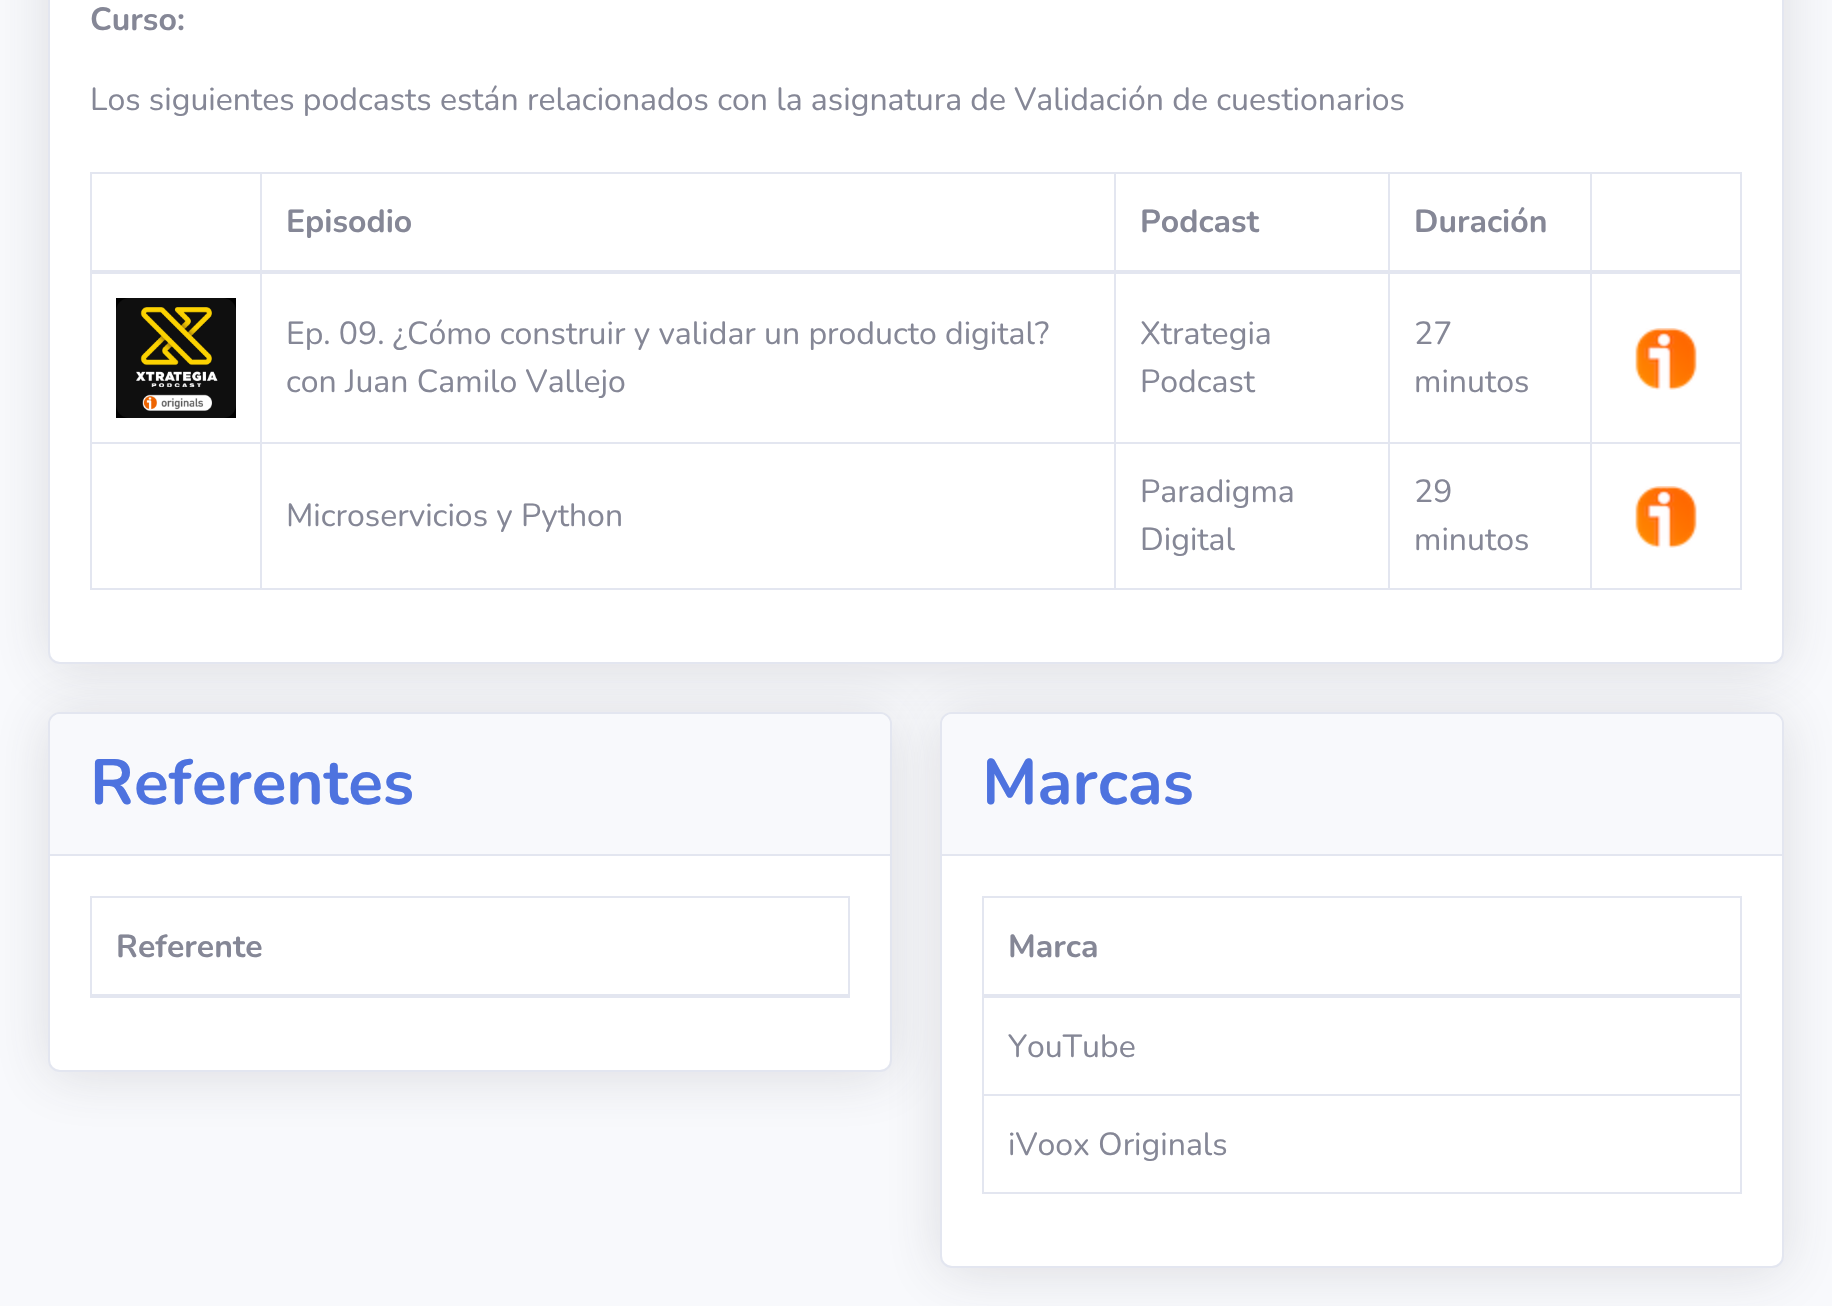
void draw(SkCanvas* canvas) {
	SkPaint fill;
	fill.setAntiAlias(true);
	auto makeFont = [&](const char* family, int weight, float size, bool italic = false) {
		SkFontStyle style(weight, SkFontStyle::kNormal_Width,
			italic ? SkFontStyle::kItalic_Slant : SkFontStyle::kUpright_Slant);
		SkFont result(fontMgr->matchFamilyStyle(family, style), size);
		result.setSubpixel(true);
		return result;
	};
	auto text = [&](const char* s, float x, float y, const SkFont& font) {
		canvas->drawString(s, x, y, font, fill);
	};
	auto box = [&](float l, float t, float r, float b) {
		canvas->drawRect(SkRect::MakeLTRB(l, t, r, b), fill);
	};
	auto picture = [&](const char* path, float l, float t, float r, float b) {
		auto image = SkImages::DeferredFromEncodedData(SkData::MakeFromFileName(path));
		canvas->drawImageRect(image, SkRect::MakeLTRB(l, t, r, b), SkSamplingOptions());
	};
	canvas->clear(0xFFF8F9FC);
	fill.setColor(0x263A3B45);
	fill.setMaskFilter(SkMaskFilter::MakeBlur(kNormal_SkBlurStyle, 28));
	canvas->drawRoundRect(SkRect::MakeLTRB(48, -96, 1784, 668), 12, 12, fill);
	fill.setMaskFilter(nullptr);
	fill.setColor(0xFFFFFFFF);
	canvas->drawRoundRect(SkRect::MakeLTRB(49, -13, 1783, 663), 11, 11, fill);
	fill.setStyle(SkPaint::kStroke_Style);
	fill.setStrokeWidth(2);
	fill.setColor(0xFFE3E6F0);
	canvas->drawRoundRect(SkRect::MakeLTRB(49, -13, 1783, 663), 11, 11, fill);
	fill.setStyle(SkPaint::kFill_Style);
	box(1590, 172, 1742, 174);
	box(1590, 442, 1742, 444);
	box(1740, 272, 1742, 590);
	box(1740, 172, 1742, 274);
	box(1590, 588, 1742, 590);
	box(1590, 442, 1592, 590);
	box(1388, 442, 1592, 444);
	box(1590, 272, 1592, 444);
	box(1590, 172, 1592, 274);
	box(1388, 172, 1592, 174);
	box(1388, 588, 1592, 590);
	box(1388, 442, 1390, 590);
	box(1114, 442, 1390, 444);
	box(1388, 272, 1390, 444);
	box(1388, 172, 1390, 274);
	box(1114, 172, 1390, 174);
	box(1114, 588, 1390, 590);
	box(1114, 442, 1116, 590);
	box(260, 442, 1116, 444);
	box(1114, 272, 1116, 444);
	box(1114, 172, 1116, 274);
	box(260, 172, 1116, 174);
	box(260, 588, 1116, 590);
	box(260, 442, 262, 590);
	box(90, 442, 262, 444);
	box(260, 272, 262, 444);
	box(260, 172, 262, 274);
	box(90, 172, 262, 174);
	box(90, 588, 262, 590);
	box(90, 272, 92, 590);
	box(90, 172, 92, 274);
	box(90, 270, 1742, 274);
	picture("image0.png", 116, 298, 236, 418);
	picture("image1.png", 1635, 328, 1697, 390);
	picture("image1.png", 1635, 486, 1697, 548);
	fill.setColor(0x263A3B45);
	fill.setMaskFilter(SkMaskFilter::MakeBlur(kNormal_SkBlurStyle, 28));
	canvas->drawRoundRect(SkRect::MakeLTRB(48, 716, 892, 1076), 12, 12, fill);
	fill.setMaskFilter(nullptr);
	fill.setColor(0xFFFFFFFF);
	canvas->drawRoundRect(SkRect::MakeLTRB(49, 713, 891, 1071), 11, 11, fill);
	fill.setStyle(SkPaint::kStroke_Style);
	fill.setColor(0xFFE3E6F0);
	canvas->drawRoundRect(SkRect::MakeLTRB(49, 713, 891, 1071), 11, 11, fill);
	fill.setStyle(SkPaint::kFill_Style);
	fill.setColor(0xFFF8F9FC);
	canvas->drawPath(SkPathBuilder().moveTo(60, 714).lineTo(880, 714).cubicTo(885.5f, 714, 890, 718.5f, 890, 724).lineTo(890, 856).lineTo(50, 856).lineTo(50, 724).cubicTo(50, 718.5f, 54.5f, 714, 60, 714).close().detach(), fill);
	fill.setColor(0xFFE3E6F0);
	box(50, 854, 890, 856);
	box(90, 896, 850, 898);
	box(848, 896, 850, 998);
	box(90, 896, 92, 998);
	box(90, 994, 850, 998);
	fill.setColor(0x263A3B45);
	fill.setMaskFilter(SkMaskFilter::MakeBlur(kNormal_SkBlurStyle, 28));
	canvas->drawRoundRect(SkRect::MakeLTRB(940, 716, 1784, 1272), 12, 12, fill);
	fill.setMaskFilter(nullptr);
	fill.setColor(0xFFFFFFFF);
	canvas->drawRoundRect(SkRect::MakeLTRB(941, 713, 1783, 1267), 11, 11, fill);
	fill.setStyle(SkPaint::kStroke_Style);
	fill.setColor(0xFFE3E6F0);
	canvas->drawRoundRect(SkRect::MakeLTRB(941, 713, 1783, 1267), 11, 11, fill);
	fill.setStyle(SkPaint::kFill_Style);
	fill.setColor(0xFFF8F9FC);
	canvas->drawPath(SkPathBuilder().moveTo(952, 714).lineTo(1772, 714).cubicTo(1777.5f, 714, 1782, 718.5f, 1782, 724).lineTo(1782, 856).lineTo(942, 856).lineTo(942, 724).cubicTo(942, 718.5f, 946.5f, 714, 952, 714).close().detach(), fill);
	fill.setColor(0xFFE3E6F0);
	box(942, 854, 1782, 856);
	box(982, 896, 1742, 898);
	box(982, 1094, 1742, 1096);
	box(1740, 996, 1742, 1194);
	box(1740, 896, 1742, 998);
	box(982, 1192, 1742, 1194);
	box(982, 996, 984, 1194);
	box(982, 896, 984, 998);
	box(982, 994, 1742, 998);
	auto font1 = makeFont("Nunito", 700, 32);
	fill.setColor(0xFF858796);
	text("Curso:", 90, 30, font1);
	auto font2 = makeFont("Nunito", 400, 32);
	text("Los siguientes podcasts están relacionados con la asignatura de Validación de cuestionarios", 90, 110, font2);
	text("Episodio", 286, 232, font1);
	text("Podcast", 1140, 232, font1);
	text("Duración", 1414, 232, font1);
	text("Ep. 09. ¿Cómo construir y validar un producto digital?", 286, 344, font2);
	text("con Juan Camilo Vallejo", 286, 392, font2);
	text("Xtrategia", 1140, 344, font2);
	text("Podcast", 1140, 392, font2);
	text("27", 1414, 344, font2);
	text("minutos", 1414, 392, font2);
	text("Microservicios y Python", 286, 526, font2);
	text("Paradigma", 1140, 502, font2);
	text("Digital", 1140, 550, font2);
	text("29", 1414, 502, font2);
	text("minutos", 1414, 550, font2);
	auto font3 = makeFont("Nunito", 700, 64);
	fill.setColor(0xFF4E73DF);
	text("Referentes", 90, 804, font3);
	fill.setColor(0xFF858796);
	text("Referente", 116, 957, font1);
	fill.setColor(0xFF4E73DF);
	text("Marcas", 982, 804, font3);
	fill.setColor(0xFF858796);
	text("Marca", 1008, 957, font1);
	text("YouTube", 1008, 1057, font2);
	text("iVoox Originals", 1008, 1155, font2);
}
